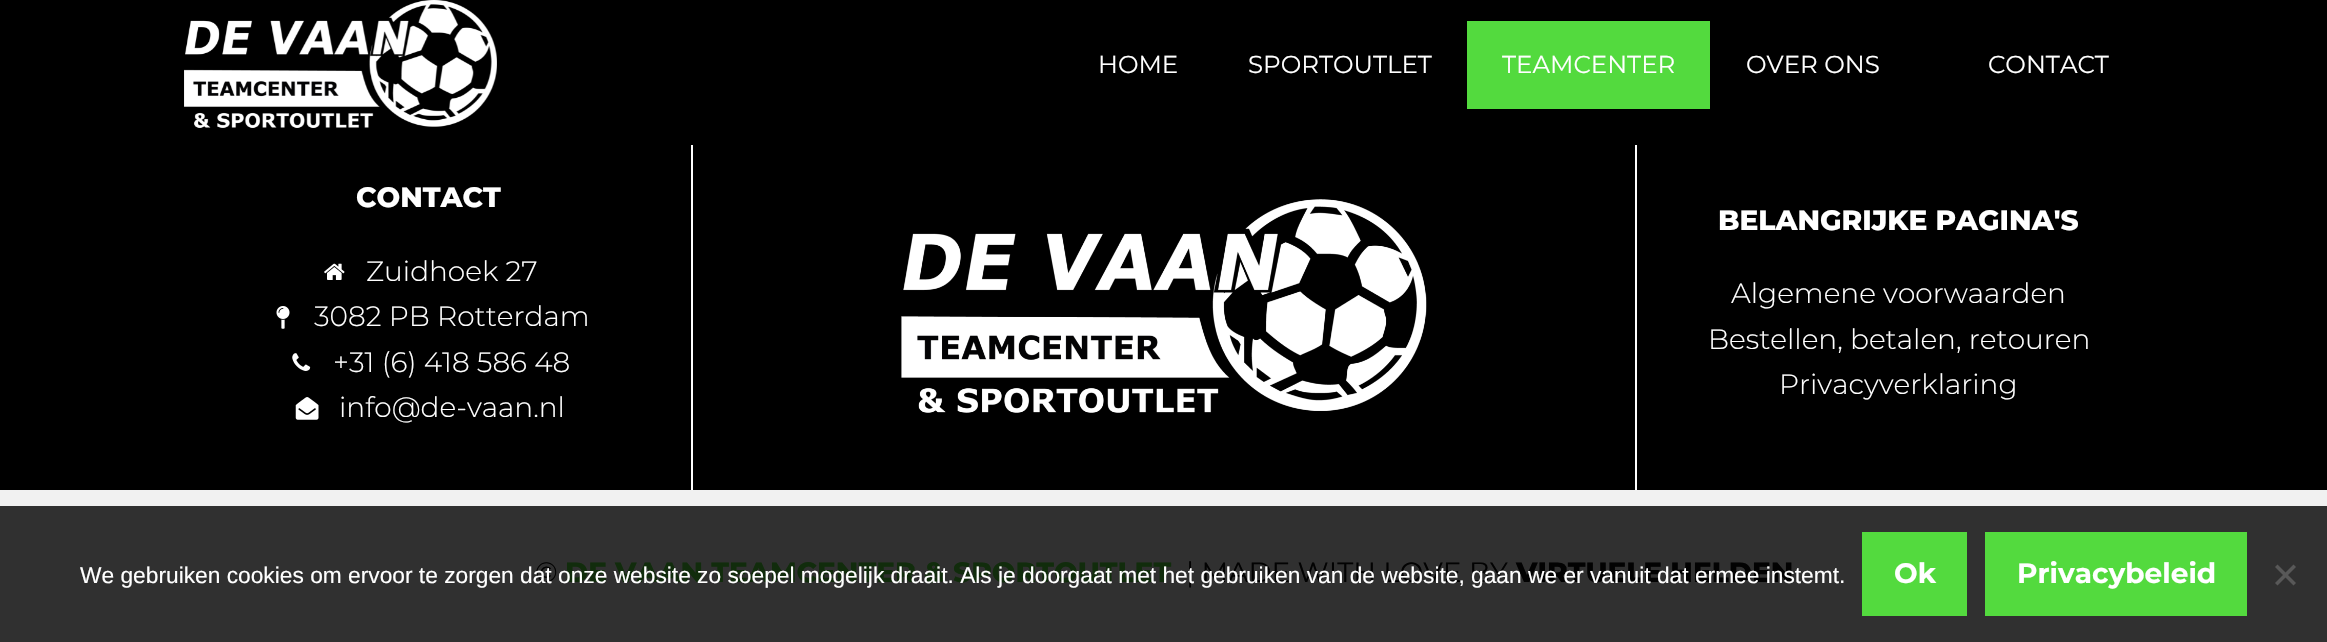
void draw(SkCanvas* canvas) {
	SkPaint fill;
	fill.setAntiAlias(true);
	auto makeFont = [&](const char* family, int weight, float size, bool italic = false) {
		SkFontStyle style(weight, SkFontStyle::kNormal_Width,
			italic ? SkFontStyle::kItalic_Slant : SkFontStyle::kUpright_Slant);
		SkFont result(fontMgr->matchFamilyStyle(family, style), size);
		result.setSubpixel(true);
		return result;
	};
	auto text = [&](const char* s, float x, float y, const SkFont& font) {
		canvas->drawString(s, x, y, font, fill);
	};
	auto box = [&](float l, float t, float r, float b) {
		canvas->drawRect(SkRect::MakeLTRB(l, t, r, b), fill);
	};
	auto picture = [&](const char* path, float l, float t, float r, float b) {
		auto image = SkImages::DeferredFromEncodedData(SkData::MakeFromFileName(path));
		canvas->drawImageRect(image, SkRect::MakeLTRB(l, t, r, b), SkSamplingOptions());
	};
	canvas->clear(0xFF000000);
	fill.setColor(0xFFFFFFFF);
	box(1635, 142, 1637, 490);
	box(691, 140, 693, 490);
	fill.setColor(0xFF000000);
	box(691, 140, 1637, 145);
	picture("image0.png", 184, 0, 497, 128);
	fill.setColor(0xFF53DA3E);
	box(1467, 21, 1710, 109);
	picture("image1.png", 324, 263, 345, 280);
	picture("image2.png", 276, 306, 290, 329);
	picture("image3.png", 292, 353, 311, 371);
	picture("image4.png", 295, 397, 319, 420);
	picture("image5.png", 901, 199, 1427, 413);
	fill.setColor(0xFFF1F1F1);
	box(0, 490, 2327, 506);
	fill.setColor(0xFF303030);
	box(0, 506, 2327, 642);
	fill.setColor(0xFF53DA3E);
	box(1862, 532, 1967, 616);
	box(1985, 532, 2247, 616);
	fill.setColor(0xFF585858);
	canvas->drawPath(SkPathBuilder().moveTo(2293.5f, 564.5f).lineTo(2296, 567).lineTo(2277.5f, 585.5f).lineTo(2275, 583).close().detach(), fill);
	canvas->drawPath(SkPathBuilder().moveTo(2275, 567).lineTo(2277.5f, 564.5f).lineTo(2296, 583).lineTo(2293.5f, 585.5f).close().detach(), fill);
	auto font1 = makeFont("Montserrat", 400, 24.5f);
	fill.setColor(0xFFFFFFFF);
	text("HOME", 1098, 73, font1);
	text("SPORTOUTLET", 1248, 73, font1);
	text("TEAMCENTER", 1502, 73, font1);
	text("OVER ONS", 1746, 73, font1);
	text("CONTACT", 1988, 73, font1);
	auto font2 = makeFont("Montserrat", 800, 28);
	text("CONTACT", 356, 207, font2);
	auto font3 = makeFont("Montserrat", 300, 28);
	text("Zuidhoek 27", 366, 281, font3);
	text("3082 PB Rotterdam", 314, 326, font3);
	text("+31 (6) 418 586 48", 333, 372, font3);
	text("info@de-vaan.nl", 339, 417, font3);
	text("BELANGRIJKE PAGINA'S", 1718, 230, font2);
	text("Algemene voorwaarden", 1731, 303, font3);
	text("Bestellen, betalen, retouren", 1708, 349, font3);
	text("Privacyverklaring", 1779, 394, font3);
	auto font4 = makeFont("Montserrat", 400, 28);
	fill.setColor(0xFF020202);
	text("©", 535, 582, font4);
	fill.setColor(0xFF112C0C);
	text("DE VAAN TEAMCENTER & SPORTOUTLET", 565, 582, font2);
	fill.setColor(0xFF020202);
	text("| MADE WITH LOVE BY", 1186, 582, font4);
	text("VIRTUELE HELDEN", 1516, 582, font2);
	auto font5 = makeFont("Liberation Sans", 400, 22.75f);
	fill.setColor(0xFFFFFFFF);
	text("We gebruiken cookies om ervoor te zorgen dat onze website zo soepel mogelijk draait. Als je doorgaat met het gebruiken van de website, gaan we er vanuit dat ermee instemt.", 80, 583, font5);
	auto font6 = makeFont("Montserrat", 700, 28);
	text("Ok", 1894, 583, font6);
	text("Privacybeleid", 2017, 583, font6);
}
